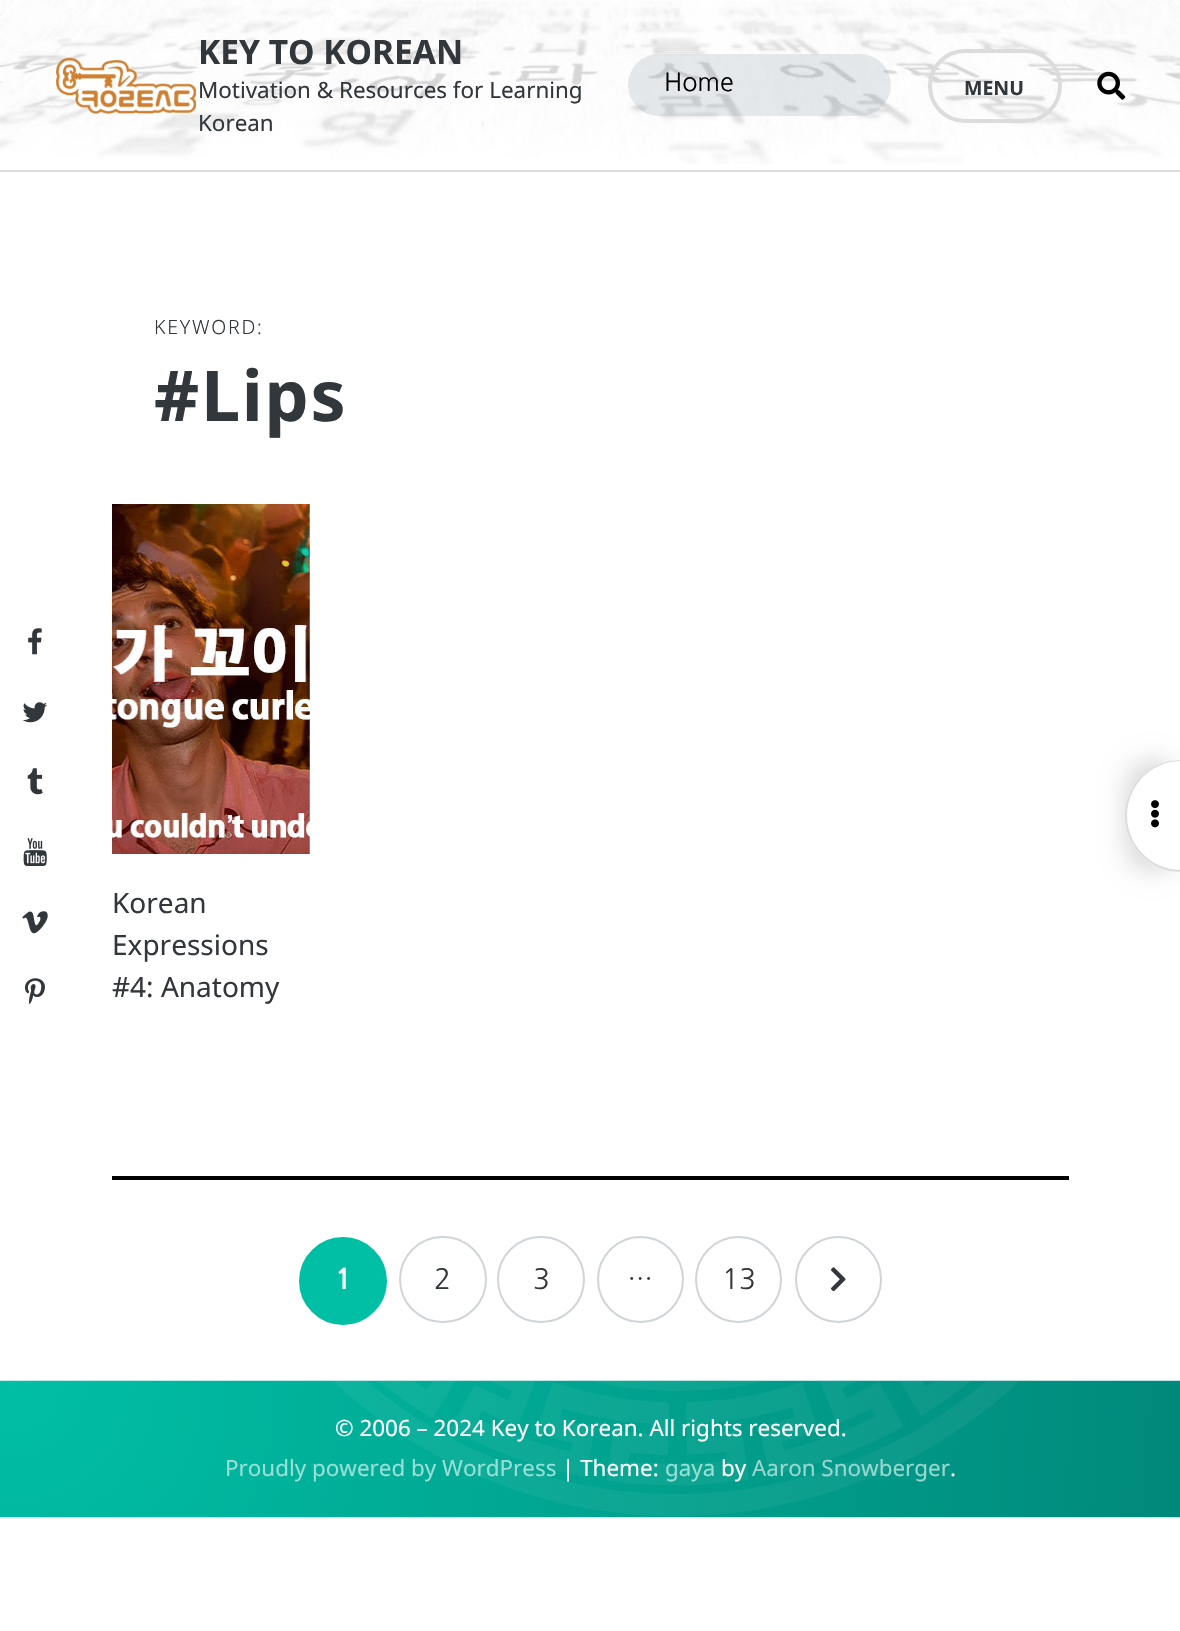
void draw(SkCanvas* canvas) {
	SkPaint fill;
	fill.setAntiAlias(true);
	auto makeFont = [&](const char* family, int weight, float size, bool italic = false) {
		SkFontStyle style(weight, SkFontStyle::kNormal_Width,
			italic ? SkFontStyle::kItalic_Slant : SkFontStyle::kUpright_Slant);
		SkFont result(fontMgr->matchFamilyStyle(family, style), size);
		result.setSubpixel(true);
		return result;
	};
	auto text = [&](const char* s, float x, float y, const SkFont& font) {
		canvas->drawString(s, x, y, font, fill);
	};
	auto spacedText = [&](const char* s, float x, float y, const SkFont& font, const SkPaint& ink, float letter, float word) {
		std::vector<SkGlyphID> glyphs(font.countText(s, strlen(s), SkTextEncoding::kUTF8));
		std::vector<float> xs(glyphs.size());
		font.textToGlyphs(s, strlen(s), SkTextEncoding::kUTF8, glyphs);
		font.getXPos(glyphs, xs, x);
		float extra = 0;
		for (size_t i = 0; i < glyphs.size(); i++) {
			xs[i] += extra;
			extra += letter + word * (glyphs[i] == font.unicharToGlyph(' '));
		}
		canvas->drawTextBlob(SkTextBlob::MakeFromPosHGlyphs(glyphs, xs, y, font), 0, 0, ink);
	};
	auto box = [&](float l, float t, float r, float b) {
		canvas->drawRect(SkRect::MakeLTRB(l, t, r, b), fill);
	};
	auto roundBox = [&](float l, float t, float r, float b, float radius) {
		canvas->drawRoundRect(SkRect::MakeLTRB(l, t, r, b), radius, radius, fill);
	};
	auto picture = [&](const char* path, float l, float t, float r, float b) {
		auto image = SkImages::DeferredFromEncodedData(SkData::MakeFromFileName(path));
		canvas->drawImageRect(image, SkRect::MakeLTRB(l, t, r, b), SkSamplingOptions());
	};
	canvas->clear(0xFFFFFFFF);
	picture("image0.png", 28, 628, 42, 655);
	picture("image1.png", 22, 702, 47, 723);
	picture("image2.png", 27, 768, 43, 795);
	picture("image3.png", 23, 838, 47, 866);
	picture("image4.png", 22, 911, 48, 934);
	picture("image5.png", 24, 978, 45, 1005);
	picture("image6.png", 0, 0, 1180, 164);
	fill.setColor(0xFFDCDCDC);
	box(0, 170, 1180, 172);
	fill.setColor(0x66FFFFFF);
	box(421, 0, 1066, 2);
	picture("image7.png", 56, 57, 196, 114);
	fill.setColor(0x338795A1);
	roundBox(628, 54, 891, 116, 31);
	fill.setStyle(SkPaint::kStroke_Style);
	fill.setStrokeWidth(4);
	fill.setColor(0xFFDCDCDC);
	canvas->drawRoundRect(SkRect::MakeLTRB(930, 51, 1060, 121), 35, 35, fill);
	picture("image8.png", 1097, 71, 1126, 100);
	picture("image9.png", 112, 504, 310, 854);
	fill.setStyle(SkPaint::kFill_Style);
	fill.setColor(0xFF000000);
	box(112, 1176, 1069, 1180);
	fill.setColor(0xFF00BFA5);
	canvas->drawCircle(343, 1281, 43, fill);
	fill.setStyle(SkPaint::kStroke_Style);
	fill.setStrokeWidth(2);
	canvas->drawCircle(343, 1281, 43, fill);
	fill.setColor(0xFFCFD5D9);
	canvas->drawRoundRect(SkRect::MakeLTRB(400, 1237, 486, 1322), 42.5f, 42.5f, fill);
	canvas->drawRoundRect(SkRect::MakeLTRB(498, 1237, 584, 1322), 42.5f, 42.5f, fill);
	canvas->drawCircle(640.5f, 1279.5f, 42.5f, fill);
	canvas->drawCircle(738.5f, 1279.5f, 42.5f, fill);
	canvas->drawCircle(838.5f, 1279.5f, 42.5f, fill);
	picture("image10.png", 831, 1267, 846, 1292);
	fill.setStyle(SkPaint::kFill_Style);
	fill.setColor(0x24000000);
	fill.setMaskFilter(SkMaskFilter::MakeBlur(kNormal_SkBlurStyle, 12));
	canvas->drawRoundRect(SkRect::MakeLTRB(1125, 760, 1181, 872), 56, 56, fill);
	fill.setMaskFilter(nullptr);
	fill.setColor(0xFFFFFFFF);
	canvas->drawPath(SkPathBuilder().moveTo(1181, 760).lineTo(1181, 872).cubicTo(1150, 872, 1125, 847, 1125, 816).cubicTo(1125, 785, 1150, 760, 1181, 760).close().detach(), fill);
	fill.setColor(0xFFDCDCDC);
	canvas->drawPath(SkPathBuilder(SkPathFillType::kEvenOdd).moveTo(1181, 760).lineTo(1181, 872).cubicTo(1150, 872, 1125, 846, 1125, 816).cubicTo(1125, 785, 1150, 760, 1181, 760).close().moveTo(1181, 761).lineTo(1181, 870).cubicTo(1151, 870, 1127, 845, 1127, 816).cubicTo(1127, 786, 1151, 761, 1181, 761).close().detach(), fill);
	picture("image11.png", 1151, 800, 1159, 828);
	picture("image12.png", 0, 1380, 1180, 1518);
	auto font1 = makeFont("Noto Sans", 700, 33.5f);
	fill.setColor(0xFF32373C);
	text("KEY TO KOREAN", 198, 64, font1);
	auto font2 = makeFont("Noto Sans", 400, 22.4f);
	text("Motivation & Resources for Learning", 198, 98, font2);
	text("Korean", 198, 131, font2);
	auto font3 = makeFont("NanumGothic", 400, 25);
	fill.setColor(0xFF000000);
	text("Home", 664, 91, font3);
	auto font4 = makeFont("Noto Sans", 700, 19.5f);
	fill.setColor(0xFF32373C);
	text("MENU", 964, 95, font4);
	auto font5 = makeFont("Noto Sans", 300, 19.5f);
	spacedText("KEYWORD:", 154, 334, font5, fill, 1.75f, 0);
	auto font6 = makeFont("Noto Sans", 700, 70);
	spacedText("#Lips", 154, 421, font6, fill, 1.75f, 0);
	auto font7 = makeFont("Noto Sans", 400, 28);
	text("Korean", 112, 913, font7);
	text("Expressions", 112, 955, font7);
	text("#4: Anatomy", 112, 997, font7);
	auto font8 = makeFont("NanumGothic", 700, 28);
	fill.setColor(0xFFFFFFFF);
	text("1", 335, 1289, font8);
	auto font9 = makeFont("NanumGothic", 400, 28);
	fill.setColor(0xFF32373C);
	text("2", 434, 1289, font9);
	text("3", 533, 1289, font9);
	text("…", 627, 1289, font9);
	text("13", 722, 1289, font9);
	fill.setColor(0xFFFFFFFF);
	text("© 2006 – 2024 Key to Korean. All rights reserved.", 335, 1436, font2);
	fill.setColor(0xFF9ADFD6);
	text("Proudly powered by WordPress", 225, 1476, font2);
	fill.setColor(0xFFFFFFFF);
	text("| Theme:", 562, 1476, font2);
	fill.setColor(0xFF9ADFD6);
	text("gaya", 665, 1476, font2);
	fill.setColor(0xFFFFFFFF);
	text("by", 721, 1476, font2);
	fill.setColor(0xFF9BD7D0);
	text("Aaron Snowberger", 752, 1476, font2);
	fill.setColor(0xFFFFFFFF);
	text(".", 950, 1476, font2);
}
